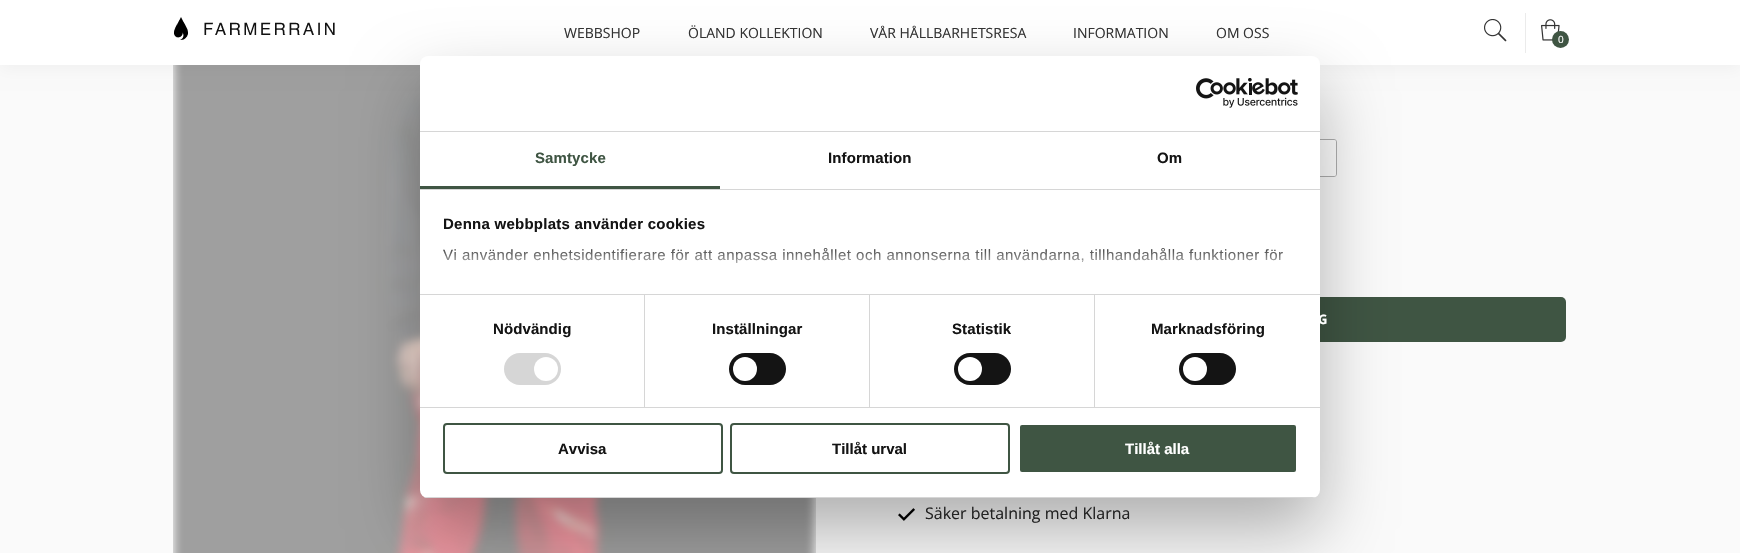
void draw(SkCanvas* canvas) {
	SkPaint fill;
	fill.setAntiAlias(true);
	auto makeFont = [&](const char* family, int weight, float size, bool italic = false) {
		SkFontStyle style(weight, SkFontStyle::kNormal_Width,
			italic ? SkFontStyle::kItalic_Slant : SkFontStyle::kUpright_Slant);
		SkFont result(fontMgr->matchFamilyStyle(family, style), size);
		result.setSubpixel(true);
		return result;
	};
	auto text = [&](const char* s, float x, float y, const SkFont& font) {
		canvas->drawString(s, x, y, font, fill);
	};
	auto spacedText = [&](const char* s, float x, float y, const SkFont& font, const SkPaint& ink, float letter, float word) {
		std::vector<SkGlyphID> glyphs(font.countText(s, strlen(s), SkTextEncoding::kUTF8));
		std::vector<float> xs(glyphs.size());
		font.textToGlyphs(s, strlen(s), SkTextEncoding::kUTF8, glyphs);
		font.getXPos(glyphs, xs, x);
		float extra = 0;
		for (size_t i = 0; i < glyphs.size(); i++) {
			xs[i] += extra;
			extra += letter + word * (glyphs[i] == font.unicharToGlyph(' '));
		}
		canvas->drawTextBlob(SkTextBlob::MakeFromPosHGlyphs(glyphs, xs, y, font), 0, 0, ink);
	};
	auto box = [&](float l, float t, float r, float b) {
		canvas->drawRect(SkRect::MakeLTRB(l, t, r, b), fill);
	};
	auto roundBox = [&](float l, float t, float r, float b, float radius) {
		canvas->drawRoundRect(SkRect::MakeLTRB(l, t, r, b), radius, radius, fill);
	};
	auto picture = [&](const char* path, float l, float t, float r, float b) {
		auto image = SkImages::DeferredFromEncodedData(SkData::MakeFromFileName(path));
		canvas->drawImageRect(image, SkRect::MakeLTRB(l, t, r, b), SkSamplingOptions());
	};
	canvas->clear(0xFFFAFAFA);
	picture("image3.png", 173, 65, 816, 553);
	fill.setColor(0x0A000000);
	fill.setMaskFilter(SkMaskFilter::MakeBlur(kNormal_SkBlurStyle, 7.5f));
	canvas->drawRect(SkRect::MakeLTRB(0, 4, 1740, 69), fill);
	fill.setMaskFilter(nullptr);
	fill.setColor(0xFFFFFFFF);
	box(0, 0, 1740, 65);
	picture("image0.png", 174, 17, 335, 40);
	picture("image1.png", 1484, 19, 1507, 42);
	fill.setColor(0xFFEBEBEB);
	box(1525, 13, 1526, 53);
	picture("image2.png", 1541, 19, 1560, 41);
	fill.setColor(0xFF3F5543);
	canvas->drawCircle(1560.5f, 39.5f, 8.5f, fill);
	fill.setStyle(SkPaint::kStroke_Style);
	fill.setStrokeWidth(1);
	fill.setColor(0xFFAFAFAF);
	canvas->drawRoundRect(SkRect::MakeLTRB(1270.5f, 139.5f, 1336.5f, 176.5f), 2.5f, 2.5f, fill);
	fill.setStyle(SkPaint::kFill_Style);
	fill.setColor(0xFFFFFFFF);
	roundBox(1271, 140, 1336, 176, 2);
	fill.setColor(0xFF3F5543);
	roundBox(898, 297, 1566, 342, 5);
	picture("image4.png", 898, 508, 915, 521);
	fill.setColor(0x4D000000);
	fill.setMaskFilter(SkMaskFilter::MakeBlur(kNormal_SkBlurStyle, 34));
	canvas->drawRoundRect(SkRect::MakeLTRB(420, 88, 1320, 530), 8, 8, fill);
	fill.setMaskFilter(nullptr);
	fill.setColor(0xFFFFFFFF);
	roundBox(420, 56, 1320, 498, 8);
	fill.setColor(0xFFD6D6D6);
	box(420, 131, 1320, 132);
	picture("image5.png", 1196, 78, 1298, 108);
	box(420, 189, 1320, 190);
	fill.setColor(0xFF3F5543);
	box(420, 186, 720, 189);
	fill.setColor(0xFFD6D6D6);
	box(420, 294, 1320, 295);
	box(420, 407, 1320, 408);
	box(644, 295, 645, 407);
	roundBox(504, 353, 561, 385, 16);
	fill.setColor(0xFFFFFFFF);
	canvas->drawCircle(546, 369, 12, fill);
	fill.setColor(0xFFD6D6D6);
	box(869, 295, 870, 407);
	fill.setColor(0xFF141414);
	roundBox(729, 353, 786, 385, 16);
	fill.setColor(0xFFFFFFFF);
	canvas->drawCircle(745, 369, 12, fill);
	fill.setColor(0xFFD6D6D6);
	box(1094, 295, 1095, 407);
	fill.setColor(0xFF141414);
	roundBox(954, 353, 1011, 385, 16);
	fill.setColor(0xFFFFFFFF);
	canvas->drawCircle(970, 369, 12, fill);
	fill.setColor(0xFF141414);
	roundBox(1179, 353, 1236, 385, 16);
	fill.setColor(0xFFFFFFFF);
	canvas->drawCircle(1195, 369, 12, fill);
	canvas->save();
	canvas->clipPath(SkPathBuilder().moveTo(428, 56).lineTo(1312, 56).cubicTo(1316.5f, 56, 1320, 59.5f, 1320, 64).lineTo(1320, 490).cubicTo(1320, 494.5f, 1316.5f, 498, 1312, 498).lineTo(428, 498).cubicTo(423.5f, 498, 420, 494.5f, 420, 490).lineTo(420, 64).cubicTo(420, 59.5f, 423.5f, 56, 428, 56).close().detach(), true);
	fill.setColor(0xFFD6D6D6);
	box(420, 497, 1320, 498);
	canvas->restore();
	fill.setStyle(SkPaint::kStroke_Style);
	fill.setStrokeWidth(2);
	fill.setColor(0xFF3F5543);
	canvas->drawRoundRect(SkRect::MakeLTRB(444, 424, 722, 473), 3, 3, fill);
	canvas->drawRoundRect(SkRect::MakeLTRB(731, 424, 1009, 473), 3, 3, fill);
	fill.setStyle(SkPaint::kFill_Style);
	canvas->drawRoundRect(SkRect::MakeLTRB(1019, 424, 1297, 473), 3, 3, fill);
	fill.setStyle(SkPaint::kStroke_Style);
	fill.setColor(0xFFFFFFFF);
	canvas->drawRoundRect(SkRect::MakeLTRB(1019, 424, 1297, 473), 3, 3, fill);
	auto font1 = makeFont("Open Sans", 400, 14);
	fill.setStyle(SkPaint::kFill_Style);
	fill.setColor(0xFF333333);
	text("WEBBSHOP", 564, 38, font1);
	text("ÖLAND KOLLEKTION", 688, 38, font1);
	text("VÅR HÅLLBARHETSRESA", 870, 38, font1);
	text("INFORMATION", 1073, 38, font1);
	text("OM OSS", 1216, 38, font1);
	auto font2 = makeFont("Open Sans", 400, 10);
	fill.setColor(0xFFFFFFFF);
	text("0", 1558, 43, font2);
	auto font3 = makeFont("Open Sans", 700, 13);
	spacedText("G", 1318, 324, font3, fill, 2, 0);
	auto font4 = makeFont("Open Sans", 400, 16);
	fill.setColor(0xFF222222);
	text("Säker betalning med Klarna", 925, 519, font4);
	auto font5 = makeFont("Liberation Sans", 700, 15);
	fill.setColor(0xFF3F5543);
	spacedText("Samtycke", 535, 163, font5, fill, 0.1f, 0);
	fill.setColor(0xFF141414);
	spacedText("Information", 828, 163, font5, fill, 0.1f, 0);
	spacedText("Om", 1157, 163, font5, fill, 0.1f, 0);
	spacedText("Denna webbplats använder cookies", 443, 229, font5, fill, 0.25f, 0);
	auto font6 = makeFont("Liberation Sans", 400, 15);
	spacedText("Vi använder enhetsidentifierare för att anpassa innehållet och annonserna till användarna, tillhandahålla funktioner för", 443, 260, font6, fill, 0.5f, 0);
	{
		const SkColor colors[] = {0xFFFFFFFF, 0xCCFFFFFF, 0x00FFFFFF};
		const float stops[] = {0, 0.5f, 1};
		const SkPoint ends[] = {{860, 294}, {860, 242}};
		fill.setShader(SkGradientShader::MakeLinear(ends, colors, stops, 3, SkTileMode::kClamp));
		fill.setAlpha(255);
	}
	box(442, 248, 1283, 264);
	fill.setShader(nullptr);
	fill.setColor(0xFF141414);
	spacedText("Nödvändig", 493, 334, font5, fill, 0.1f, 0);
	spacedText("Inställningar", 712, 334, font5, fill, 0.1f, 0);
	spacedText("Statistik", 952, 334, font5, fill, 0.1f, 0);
	spacedText("Marknadsföring", 1151, 334, font5, fill, 0.1f, 0);
	text("Avvisa", 558, 454, font5);
	text("Tillåt urval", 832, 454, font5);
	fill.setColor(0xFFFFFFFF);
	text("Tillåt alla", 1125, 454, font5);
}
